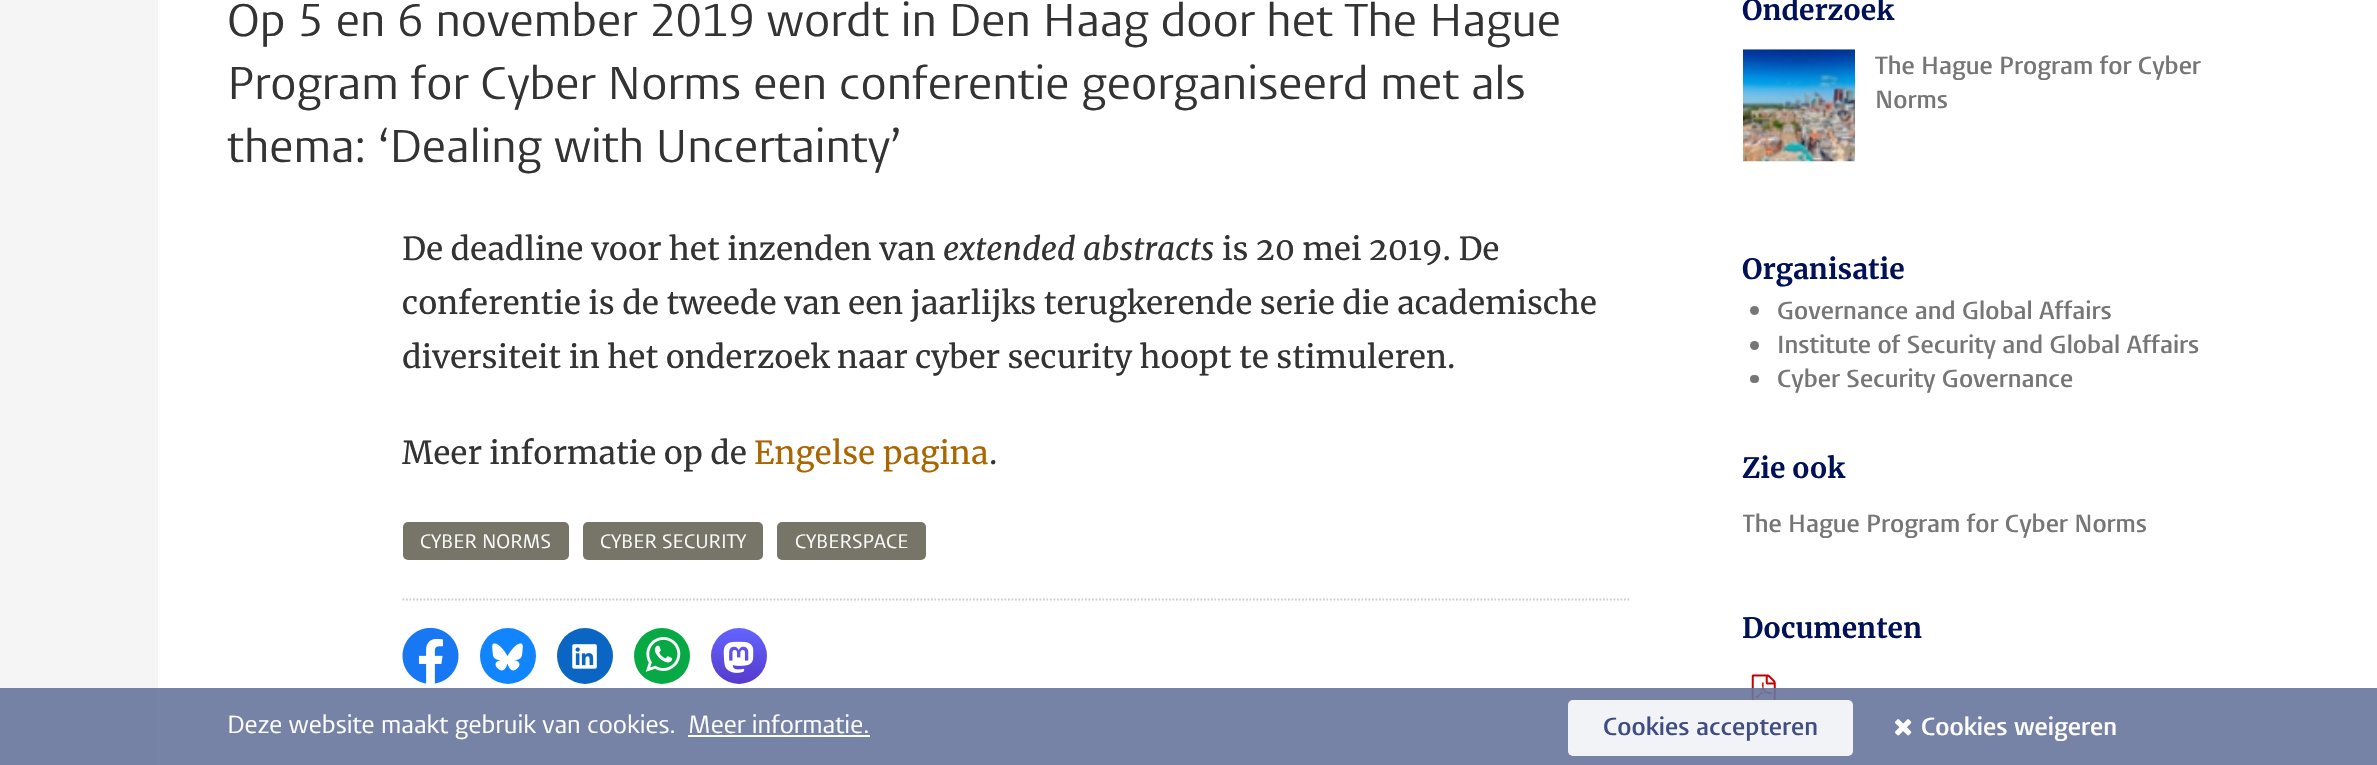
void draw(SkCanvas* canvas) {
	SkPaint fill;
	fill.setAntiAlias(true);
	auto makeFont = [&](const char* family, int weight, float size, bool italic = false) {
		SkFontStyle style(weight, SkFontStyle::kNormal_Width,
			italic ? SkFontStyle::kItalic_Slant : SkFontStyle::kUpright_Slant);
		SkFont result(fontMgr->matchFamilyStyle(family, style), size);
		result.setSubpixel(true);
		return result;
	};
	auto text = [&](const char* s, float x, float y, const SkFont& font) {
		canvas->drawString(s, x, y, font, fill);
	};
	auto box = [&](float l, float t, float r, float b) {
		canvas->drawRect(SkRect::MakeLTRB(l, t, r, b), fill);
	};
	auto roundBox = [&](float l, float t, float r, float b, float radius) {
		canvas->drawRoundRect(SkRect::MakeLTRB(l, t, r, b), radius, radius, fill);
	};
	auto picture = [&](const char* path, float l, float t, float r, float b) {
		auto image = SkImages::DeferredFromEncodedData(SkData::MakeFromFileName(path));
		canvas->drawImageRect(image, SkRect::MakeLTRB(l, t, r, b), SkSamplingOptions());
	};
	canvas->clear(0xFFFFFFFF);
	{
		const SkColor colors[] = {0xFFF5F5F5, 0xFFF5F5F5, 0xFFFFFFFF};
		const float stops[] = {0, 0.15f, 0.65f};
		const SkPoint ends[] = {{0, 105}, {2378, 105}};
		fill.setShader(SkGradientShader::MakeLinear(ends, colors, stops, 3, SkTileMode::kClamp));
		fill.setAlpha(255);
	}
	box(0, 0, 1248, 765);
	fill.setShader(nullptr);
	fill.setColor(0xFFFFFFFF);
	box(158, 0, 1248, 765);
	fill.setColor(0xFF767567);
	roundBox(403, 522, 569, 560, 5);
	roundBox(583, 522, 763, 560, 5);
	roundBox(777, 522, 926, 560, 5);
	fill.setStyle(SkPaint::kStroke_Style);
	fill.setStrokeWidth(1.8f);
	fill.setColor(0xFFCCCCCC);
	fill.setPathEffect(SkDashPathEffect::Make({{1.75f, 1.75f}}, 0));
	canvas->drawPath(SkPathBuilder().moveTo(402.5f, 599.5f).lineTo(1631, 599.5f).detach(), fill);
	fill.setPathEffect(nullptr);
	picture("image0.png", 402, 627, 459, 684);
	fill.setStyle(SkPaint::kFill_Style);
	fill.setColor(0xFF1185FE);
	canvas->drawCircle(508, 656, 28, fill);
	picture("image1.png", 492, 643, 523, 671);
	fill.setColor(0xFF0A66C2);
	canvas->drawCircle(585, 656, 28, fill);
	picture("image2.png", 572, 644, 597, 669);
	fill.setColor(0xFF07A944);
	canvas->drawCircle(662, 656, 28, fill);
	picture("image3.png", 645, 637, 681, 672);
	{
		const SkColor colors[] = {0xFF6364FF, 0xFF563ACC};
		const float stops[] = {0, 1};
		const SkPoint ends[] = {{739, 628}, {739, 684}};
		fill.setShader(SkGradientShader::MakeLinear(ends, colors, stops, 2, SkTileMode::kClamp));
		fill.setAlpha(255);
	}
	canvas->drawCircle(739, 656, 28, fill);
	picture("image4.png", 723, 641, 754, 673);
	picture("image5.png", 1743, 49, 1855, 162);
	fill.setShader(nullptr);
	fill.setColor(0xFF767676);
	canvas->drawCircle(1754.5f, 310.5f, 4.5f, fill);
	canvas->drawCircle(1754.5f, 345.5f, 4.5f, fill);
	roundBox(1750, 375, 1759, 383, 4);
	picture("image6.png", 1751, 674, 1776, 703);
	fill.setColor(0xE668769C);
	box(0, 688, 2377, 765);
	fill.setColor(0xFFFFFFFF);
	box(688, 735, 870, 737);
	fill.setColor(0xE6FFFFFF);
	roundBox(1568, 700, 1853, 756, 5);
	picture("image7.png", 1895, 719, 1912, 736);
	auto font1 = makeFont("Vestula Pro", 400, 45.5f);
	fill.setColor(0xFF333333);
	text("Op 5 en 6 november 2019 wordt in Den Haag door het The Hague", 227, 36, font1);
	text("Program for Cyber Norms een conferentie georganiseerd met als", 227, 99, font1);
	text("thema: ‘Dealing with Uncertainty’", 227, 162, font1);
	auto font2 = makeFont("Merriweather", 400, 31.5f);
	text("De deadline voor het inzenden van", 402, 260, font2);
	auto font3 = makeFont("Merriweather", 400, 31.5f, true);
	text("extended abstracts", 943, 260, font3);
	text("is 20 mei 2019. De", 1222, 260, font2);
	text("conferentie is de tweede van een jaarlijks terugkerende serie die academische", 402, 314, font2);
	text("diversiteit in het onderzoek naar cyber security hoopt te stimuleren.", 402, 368, font2);
	text("Meer informatie op de", 402, 464, font2);
	fill.setColor(0xFFAA6600);
	text("Engelse pagina", 754, 464, font2);
	fill.setColor(0xFF333333);
	text(".", 989, 464, font2);
	auto font4 = makeFont("Vestula Pro", 400, 19.25f);
	fill.setColor(0xFFFFFFFF);
	text("CYBER NORMS", 420, 548, font4);
	text("CYBER SECURITY", 600, 548, font4);
	text("CYBERSPACE", 795, 548, font4);
	auto font5 = makeFont("Merriweather", 700, 28);
	fill.setColor(0xFF001158);
	text("Onderzoek", 1742, 20, font5);
	auto font6 = makeFont("Vestula Pro", 600, 24.5f);
	fill.setColor(0xFF767676);
	text("The Hague Program for Cyber", 1875, 74, font6);
	text("Norms", 1875, 108, font6);
	fill.setColor(0xFF001158);
	text("Organisatie", 1742, 279, font5);
	fill.setColor(0xFF767676);
	text("Governance and Global Affairs", 1777, 319, font6);
	text("Institute of Security and Global Affairs", 1777, 353, font6);
	text("Cyber Security Governance", 1777, 387, font6);
	fill.setColor(0xFF001158);
	text("Zie ook", 1742, 478, font5);
	canvas->save();
	canvas->clipRect(SkRect::MakeLTRB(1743, 508, 2223, 541));
	fill.setColor(0xFF767676);
	text("The Hague Program for Cyber Norms", 1742, 532, font6);
	canvas->restore();
	fill.setColor(0xFF001158);
	text("Documenten", 1742, 638, font5);
	auto font7 = makeFont("Vestula Pro", 400, 24.5f);
	fill.setColor(0xFFFFFFFF);
	text("Deze website maakt gebruik van cookies.", 227, 733, font7);
	text("Meer informatie.", 688, 733, font7);
	fill.setColor(0xFF404D82);
	text("Cookies accepteren", 1603, 735, font6);
	fill.setColor(0xFFFFFFFF);
	text("Cookies weigeren", 1921, 735, font6);
}
